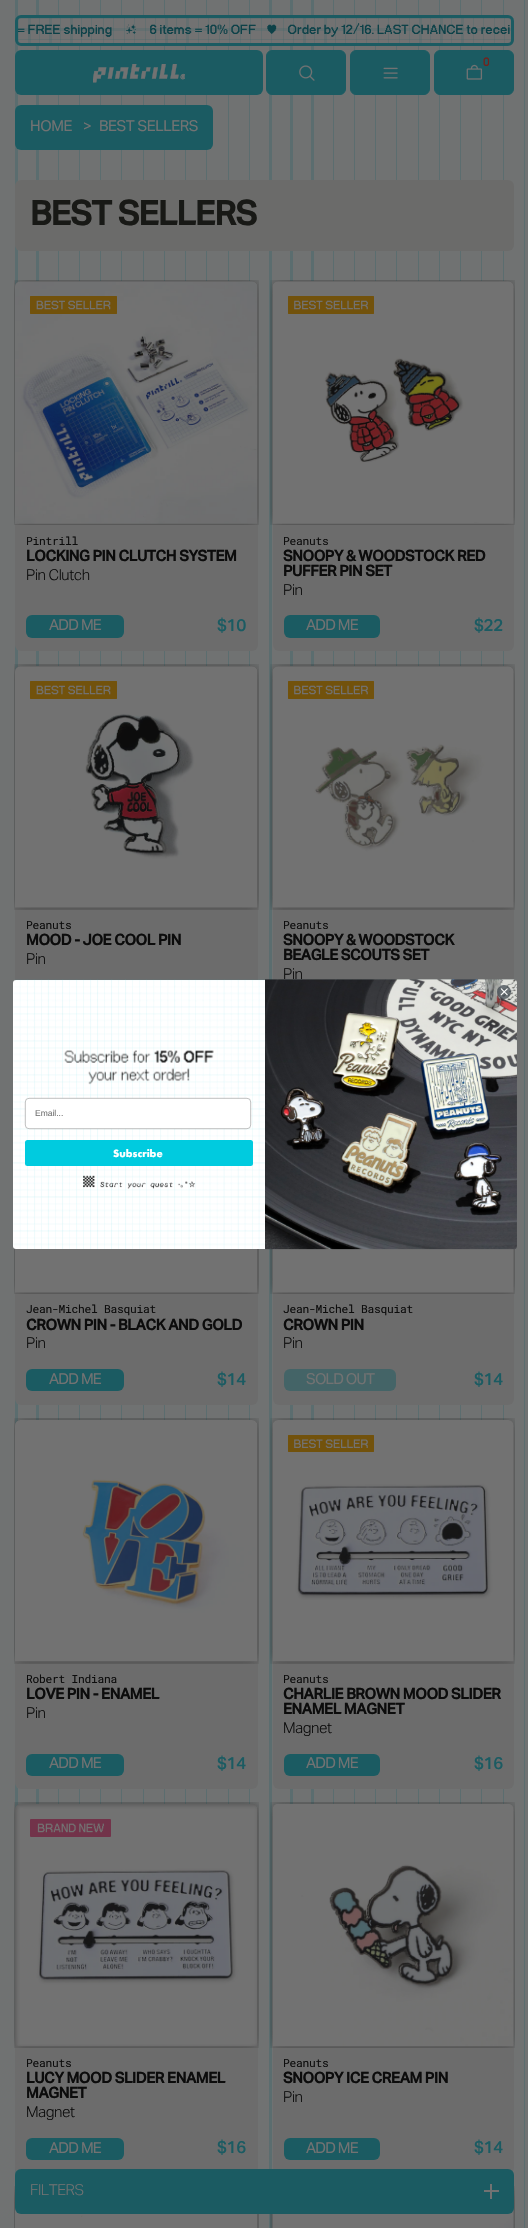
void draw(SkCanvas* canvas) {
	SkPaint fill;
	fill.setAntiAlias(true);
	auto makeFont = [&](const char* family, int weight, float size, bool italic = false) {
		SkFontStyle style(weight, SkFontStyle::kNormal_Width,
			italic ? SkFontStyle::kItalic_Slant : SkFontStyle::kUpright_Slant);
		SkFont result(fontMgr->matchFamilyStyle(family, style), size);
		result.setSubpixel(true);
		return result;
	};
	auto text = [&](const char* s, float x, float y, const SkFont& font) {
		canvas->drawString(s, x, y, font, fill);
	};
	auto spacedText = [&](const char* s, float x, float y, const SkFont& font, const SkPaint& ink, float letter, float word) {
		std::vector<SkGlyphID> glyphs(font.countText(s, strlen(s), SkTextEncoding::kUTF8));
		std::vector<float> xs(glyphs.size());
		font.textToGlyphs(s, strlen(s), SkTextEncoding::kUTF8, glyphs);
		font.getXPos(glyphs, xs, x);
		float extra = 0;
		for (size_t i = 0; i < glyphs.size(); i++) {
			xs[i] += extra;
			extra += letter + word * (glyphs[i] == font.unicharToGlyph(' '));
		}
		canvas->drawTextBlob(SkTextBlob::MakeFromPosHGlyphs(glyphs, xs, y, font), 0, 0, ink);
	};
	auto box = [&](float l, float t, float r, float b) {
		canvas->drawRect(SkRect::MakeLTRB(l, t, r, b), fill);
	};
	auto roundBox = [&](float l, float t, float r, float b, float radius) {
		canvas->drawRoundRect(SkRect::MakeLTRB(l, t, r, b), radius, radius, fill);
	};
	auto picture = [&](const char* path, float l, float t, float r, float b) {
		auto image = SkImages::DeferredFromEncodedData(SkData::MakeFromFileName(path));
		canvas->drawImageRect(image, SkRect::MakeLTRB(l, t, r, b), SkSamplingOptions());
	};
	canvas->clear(0xFF707272);
	picture("image0.png", 15, 0, 525, 2228);
	fill.setColor(0xFF727272);
	roundBox(15, 15, 514, 46, 6);
	picture("image1.png", 18, 15, 505, 46);
	fill.setColor(0x261B5B62);
	box(15, 18, 514, 19);
	box(15, 28, 514, 31);
	box(15, 39, 514, 40);
	fill.setStyle(SkPaint::kStroke_Style);
	fill.setStrokeWidth(3);
	fill.setColor(0xFF1B5B62);
	canvas->drawRoundRect(SkRect::MakeLTRB(16.5f, 16.5f, 512.5f, 44.5f), 4.5f, 4.5f, fill);
	fill.setStyle(SkPaint::kFill_Style);
	roundBox(15, 50, 263, 95, 6);
	picture("image2.png", 93, 64, 185, 83);
	canvas->drawRoundRect(SkRect::MakeLTRB(266.5f, 50.5f, 345.5f, 94.5f), 5.5f, 5.5f, fill);
	fill.setStyle(SkPaint::kStroke_Style);
	fill.setStrokeWidth(1);
	canvas->drawRoundRect(SkRect::MakeLTRB(266.5f, 50.5f, 345.5f, 94.5f), 5.5f, 5.5f, fill);
	picture("image3.png", 299, 65, 315, 81);
	fill.setStyle(SkPaint::kFill_Style);
	canvas->drawRoundRect(SkRect::MakeLTRB(350.5f, 50.5f, 429.5f, 94.5f), 5.5f, 5.5f, fill);
	fill.setStyle(SkPaint::kStroke_Style);
	canvas->drawRoundRect(SkRect::MakeLTRB(350.5f, 50.5f, 429.5f, 94.5f), 5.5f, 5.5f, fill);
	picture("image4.png", 383, 67, 398, 79);
	fill.setStyle(SkPaint::kFill_Style);
	canvas->drawRoundRect(SkRect::MakeLTRB(434.5f, 50.5f, 513.5f, 94.5f), 5.5f, 5.5f, fill);
	fill.setStyle(SkPaint::kStroke_Style);
	canvas->drawRoundRect(SkRect::MakeLTRB(434.5f, 50.5f, 513.5f, 94.5f), 5.5f, 5.5f, fill);
	picture("image5.png", 466, 64, 483, 80);
	fill.setStyle(SkPaint::kFill_Style);
	roundBox(15, 105, 213, 150, 6);
	fill.setColor(0xFF6B6B6A);
	roundBox(15, 180, 514, 251, 6);
	fill.setColor(0xFF6C6C6C);
	roundBox(15, 281, 258, 651, 6);
	picture("image6.png", 14, 280, 259, 525);
	picture("image7.png", 30, 296, 117, 314);
	fill.setColor(0xFF1B5B62);
	roundBox(26, 615, 124, 638, 6);
	fill.setColor(0xFF6C6C6C);
	roundBox(273, 281, 514, 651, 6);
	picture("image8.png", 270, 280, 515, 525);
	picture("image9.png", 288, 296, 374, 314);
	fill.setColor(0xFF1B5B62);
	roundBox(284, 615, 380, 638, 6);
	fill.setColor(0xFF6C6C6C);
	roundBox(15, 666, 258, 1035, 6);
	picture("image10.png", 14, 664, 259, 910);
	picture("image7.png", 30, 681, 117, 699);
	roundBox(273, 666, 514, 1035, 6);
	picture("image11.png", 270, 664, 515, 910);
	picture("image9.png", 288, 681, 374, 699);
	roundBox(15, 1050, 258, 1405, 6);
	picture("image12.png", 14, 1248, 259, 1294);
	fill.setColor(0xFF1B5B62);
	roundBox(26, 1369, 124, 1391, 6);
	fill.setColor(0xFF6C6C6C);
	roundBox(273, 1050, 514, 1405, 6);
	picture("image13.png", 270, 1248, 515, 1294);
	fill.setColor(0xFF446467);
	roundBox(284, 1369, 396, 1391, 6);
	fill.setColor(0xFF6C6C6C);
	roundBox(15, 1420, 258, 1789, 6);
	picture("image14.png", 14, 1418, 259, 1664);
	fill.setColor(0xFF1B5B62);
	roundBox(26, 1754, 124, 1776, 6);
	fill.setColor(0xFF6C6C6C);
	roundBox(273, 1420, 514, 1789, 6);
	picture("image15.png", 270, 1418, 515, 1664);
	picture("image16.png", 288, 1435, 374, 1452);
	fill.setColor(0xFF1B5B62);
	roundBox(284, 1754, 380, 1776, 6);
	fill.setColor(0xFF6C6C6C);
	roundBox(15, 1804, 258, 2174, 6);
	picture("image17.png", 14, 1802, 259, 2048);
	picture("image18.png", 30, 1819, 111, 1837);
	fill.setColor(0xFF1B5B62);
	roundBox(26, 2138, 124, 2160, 6);
	fill.setColor(0xFF6C6C6C);
	roundBox(273, 1804, 514, 2174, 6);
	picture("image19.png", 270, 1802, 515, 2048);
	fill.setColor(0xFF1B5B62);
	roundBox(284, 2138, 380, 2160, 6);
	fill.setColor(0xFF6C6C6C);
	box(257, 2214, 258, 2228);
	picture("image20.png", 14, 2186, 259, 2228);
	box(513, 2208, 514, 2228);
	picture("image21.png", 270, 2186, 515, 2228);
	fill.setColor(0xFF1B5B62);
	roundBox(15, 2169, 514, 2214, 6);
	fill.setColor(0xFF727272);
	box(484, 2190, 499, 2192);
	box(490, 2184, 492, 2199);
	fill.setColor(0xFFFFFFFF);
	roundBox(13, 980, 516, 1249, 3);
	picture("image23.png", 13, 979, 517, 1249);
	picture("image26.png", 265, 979, 517, 1250);
	picture("image22.png", 497, 985, 511, 999);
	picture("image24.png", 64, 1050, 214, 1085);
	canvas->drawRoundRect(SkRect::MakeLTRB(25.3f, 1098.3f, 250.7f, 1128.7f), 3.7f, 3.7f, fill);
	fill.setStyle(SkPaint::kStroke_Style);
	fill.setStrokeWidth(0.6f);
	fill.setColor(0xFF949596);
	canvas->drawRoundRect(SkRect::MakeLTRB(25.3f, 1098.3f, 250.7f, 1128.7f), 3.7f, 3.7f, fill);
	fill.setStyle(SkPaint::kFill_Style);
	fill.setColor(0xFF00CBDF);
	roundBox(25, 1140, 253, 1166, 2.5f);
	picture("image25.png", 83, 1175, 196, 1189);
	canvas->save();
	canvas->clipPath(SkPathBuilder().moveTo(21, 18).lineTo(508, 18).cubicTo(509.5f, 18, 511, 19.5f, 511, 21).lineTo(511, 41).cubicTo(511, 42.5f, 509.5f, 44, 508, 44).lineTo(21, 44).cubicTo(19.5f, 44, 18, 42.5f, 18, 41).lineTo(18, 21).cubicTo(18, 19.5f, 19.5f, 18, 21, 18).close().detach(), true);
	auto font1 = makeFont("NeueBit", 700, 18.75f);
	fill.setColor(0xFF0D4148);
	text("= FREE shipping     ✨     6 items = 10% OFF    ♥    Order by 12/16. LAST CHANCE to recei", 17, 34, font1);
	canvas->restore();
	auto font2 = makeFont("NeueBit", 700, 17);
	fill.setColor(0xFF72221C);
	text("0", 483, 66, font2);
	auto font3 = makeFont("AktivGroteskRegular", 400, 15);
	fill.setColor(0xFF727272);
	spacedText("HOME", 30, 131, font3, fill, -0.4f, 0);
	spacedText(">", 83, 131, font3, fill, -0.4f, 0);
	spacedText("BEST SELLERS", 99, 131, font3, fill, -0.4f, 0);
	auto font4 = makeFont("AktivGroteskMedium", 700, 33.75f);
	fill.setColor(0xFF181916);
	spacedText("BEST SELLERS", 30, 225, font4, fill, -0.8f, 0);
	auto font5 = makeFont("Roboto Mono", 400, 11.25f);
	fill.setColor(0xFF0C0C0C);
	spacedText("Pintrill", 26, 545, font5, fill, -0.25f, 0);
	auto font6 = makeFont("AktivGroteskMedium", 700, 15);
	spacedText("LOCKING PIN CLUTCH SYSTEM", 26, 561, font6, fill, -0.4f, 0);
	auto font7 = makeFont("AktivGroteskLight", 300, 15);
	spacedText("Pin Clutch", 26, 580, font7, fill, -0.4f, 0);
	fill.setColor(0xFF727272);
	spacedText("ADD ME", 49, 630, font3, fill, -0.75f, 0);
	auto font8 = makeFont("AktivGroteskMedium", 500, 17);
	fill.setColor(0xFF1B5B62);
	spacedText("$10", 217, 631, font8, fill, -0.5f, 0);
	fill.setColor(0xFF0C0C0C);
	spacedText("Peanuts", 283, 545, font5, fill, -0.25f, 0);
	spacedText("SNOOPY & WOODSTOCK RED", 283, 561, font6, fill, -0.4f, 0);
	spacedText("PUFFER PIN SET", 283, 576, font6, fill, -0.4f, 0);
	spacedText("Pin", 283, 595, font7, fill, -0.4f, 0);
	fill.setColor(0xFF727272);
	spacedText("ADD ME", 306, 630, font3, fill, -0.75f, 0);
	fill.setColor(0xFF1B5B62);
	spacedText("$22", 474, 631, font8, fill, -0.5f, 0);
	fill.setColor(0xFF0C0C0C);
	spacedText("Peanuts", 26, 929, font5, fill, -0.25f, 0);
	spacedText("MOOD - JOE COOL PIN", 26, 945, font6, fill, -0.4f, 0);
	spacedText("Pin", 26, 964, font7, fill, -0.4f, 0);
	spacedText("Peanuts", 283, 929, font5, fill, -0.25f, 0);
	spacedText("SNOOPY & WOODSTOCK", 283, 945, font6, fill, -0.4f, 0);
	spacedText("BEAGLE SCOUTS SET", 283, 960, font6, fill, -0.4f, 0);
	spacedText("Pin", 283, 979, font7, fill, -0.4f, 0);
	spacedText("Jean-Michel Basquiat", 26, 1313, font5, fill, -0.25f, 0);
	spacedText("CROWN PIN - BLACK AND GOLD", 26, 1330, font6, fill, -0.4f, 0);
	spacedText("Pin", 26, 1348, font7, fill, -0.4f, 0);
	fill.setColor(0xFF727272);
	spacedText("ADD ME", 49, 1384, font3, fill, -0.75f, 0);
	fill.setColor(0xFF1B5B62);
	spacedText("$14", 217, 1385, font8, fill, -0.5f, 0);
	fill.setColor(0xFF0C0C0C);
	spacedText("Jean-Michel Basquiat", 283, 1313, font5, fill, -0.25f, 0);
	spacedText("CROWN PIN", 283, 1330, font6, fill, -0.4f, 0);
	spacedText("Pin", 283, 1348, font7, fill, -0.4f, 0);
	fill.setColor(0xFF727272);
	spacedText("SOLD OUT", 306, 1384, font3, fill, -0.75f, 0);
	fill.setColor(0xFF1B5B62);
	spacedText("$14", 474, 1385, font8, fill, -0.5f, 0);
	fill.setColor(0xFF0C0C0C);
	spacedText("Robert Indiana", 26, 1683, font5, fill, -0.25f, 0);
	spacedText("LOVE PIN - ENAMEL", 26, 1699, font6, fill, -0.4f, 0);
	spacedText("Pin", 26, 1718, font7, fill, -0.4f, 0);
	fill.setColor(0xFF727272);
	spacedText("ADD ME", 49, 1768, font3, fill, -0.75f, 0);
	fill.setColor(0xFF1B5B62);
	spacedText("$14", 217, 1769, font8, fill, -0.5f, 0);
	fill.setColor(0xFF0C0C0C);
	spacedText("Peanuts", 283, 1683, font5, fill, -0.25f, 0);
	spacedText("CHARLIE BROWN MOOD SLIDER", 283, 1699, font6, fill, -0.4f, 0);
	spacedText("ENAMEL MAGNET", 283, 1714, font6, fill, -0.4f, 0);
	spacedText("Magnet", 283, 1733, font7, fill, -0.4f, 0);
	fill.setColor(0xFF727272);
	spacedText("ADD ME", 306, 1768, font3, fill, -0.75f, 0);
	fill.setColor(0xFF1B5B62);
	spacedText("$16", 474, 1769, font8, fill, -0.5f, 0);
	fill.setColor(0xFF0C0C0C);
	spacedText("Peanuts", 26, 2067, font5, fill, -0.25f, 0);
	spacedText("LUCY MOOD SLIDER ENAMEL", 26, 2083, font6, fill, -0.4f, 0);
	spacedText("MAGNET", 26, 2098, font6, fill, -0.4f, 0);
	spacedText("Magnet", 26, 2117, font7, fill, -0.4f, 0);
	fill.setColor(0xFF727272);
	spacedText("ADD ME", 49, 2153, font3, fill, -0.75f, 0);
	fill.setColor(0xFF1B5B62);
	spacedText("$16", 217, 2153, font8, fill, -0.5f, 0);
	fill.setColor(0xFF0C0C0C);
	spacedText("Peanuts", 283, 2067, font5, fill, -0.25f, 0);
	spacedText("SNOOPY ICE CREAM PIN", 283, 2083, font6, fill, -0.4f, 0);
	spacedText("Pin", 283, 2102, font7, fill, -0.4f, 0);
	fill.setColor(0xFF727272);
	spacedText("ADD ME", 306, 2153, font3, fill, -0.75f, 0);
	fill.setColor(0xFF1B5B62);
	spacedText("$14", 474, 2153, font8, fill, -0.5f, 0);
	fill.setColor(0xFF727272);
	spacedText("FILTERS", 30, 2195, font7, fill, -0.4f, 0);
	auto font9 = makeFont("Liberation Sans", 400, 8.5f);
	text("Email...", 35, 1116, font9);
	auto font10 = makeFont("Futura PT", 700, 11);
	fill.setColor(0xFFFFFFFF);
	text("Subscribe", 113, 1157, font10);
}
